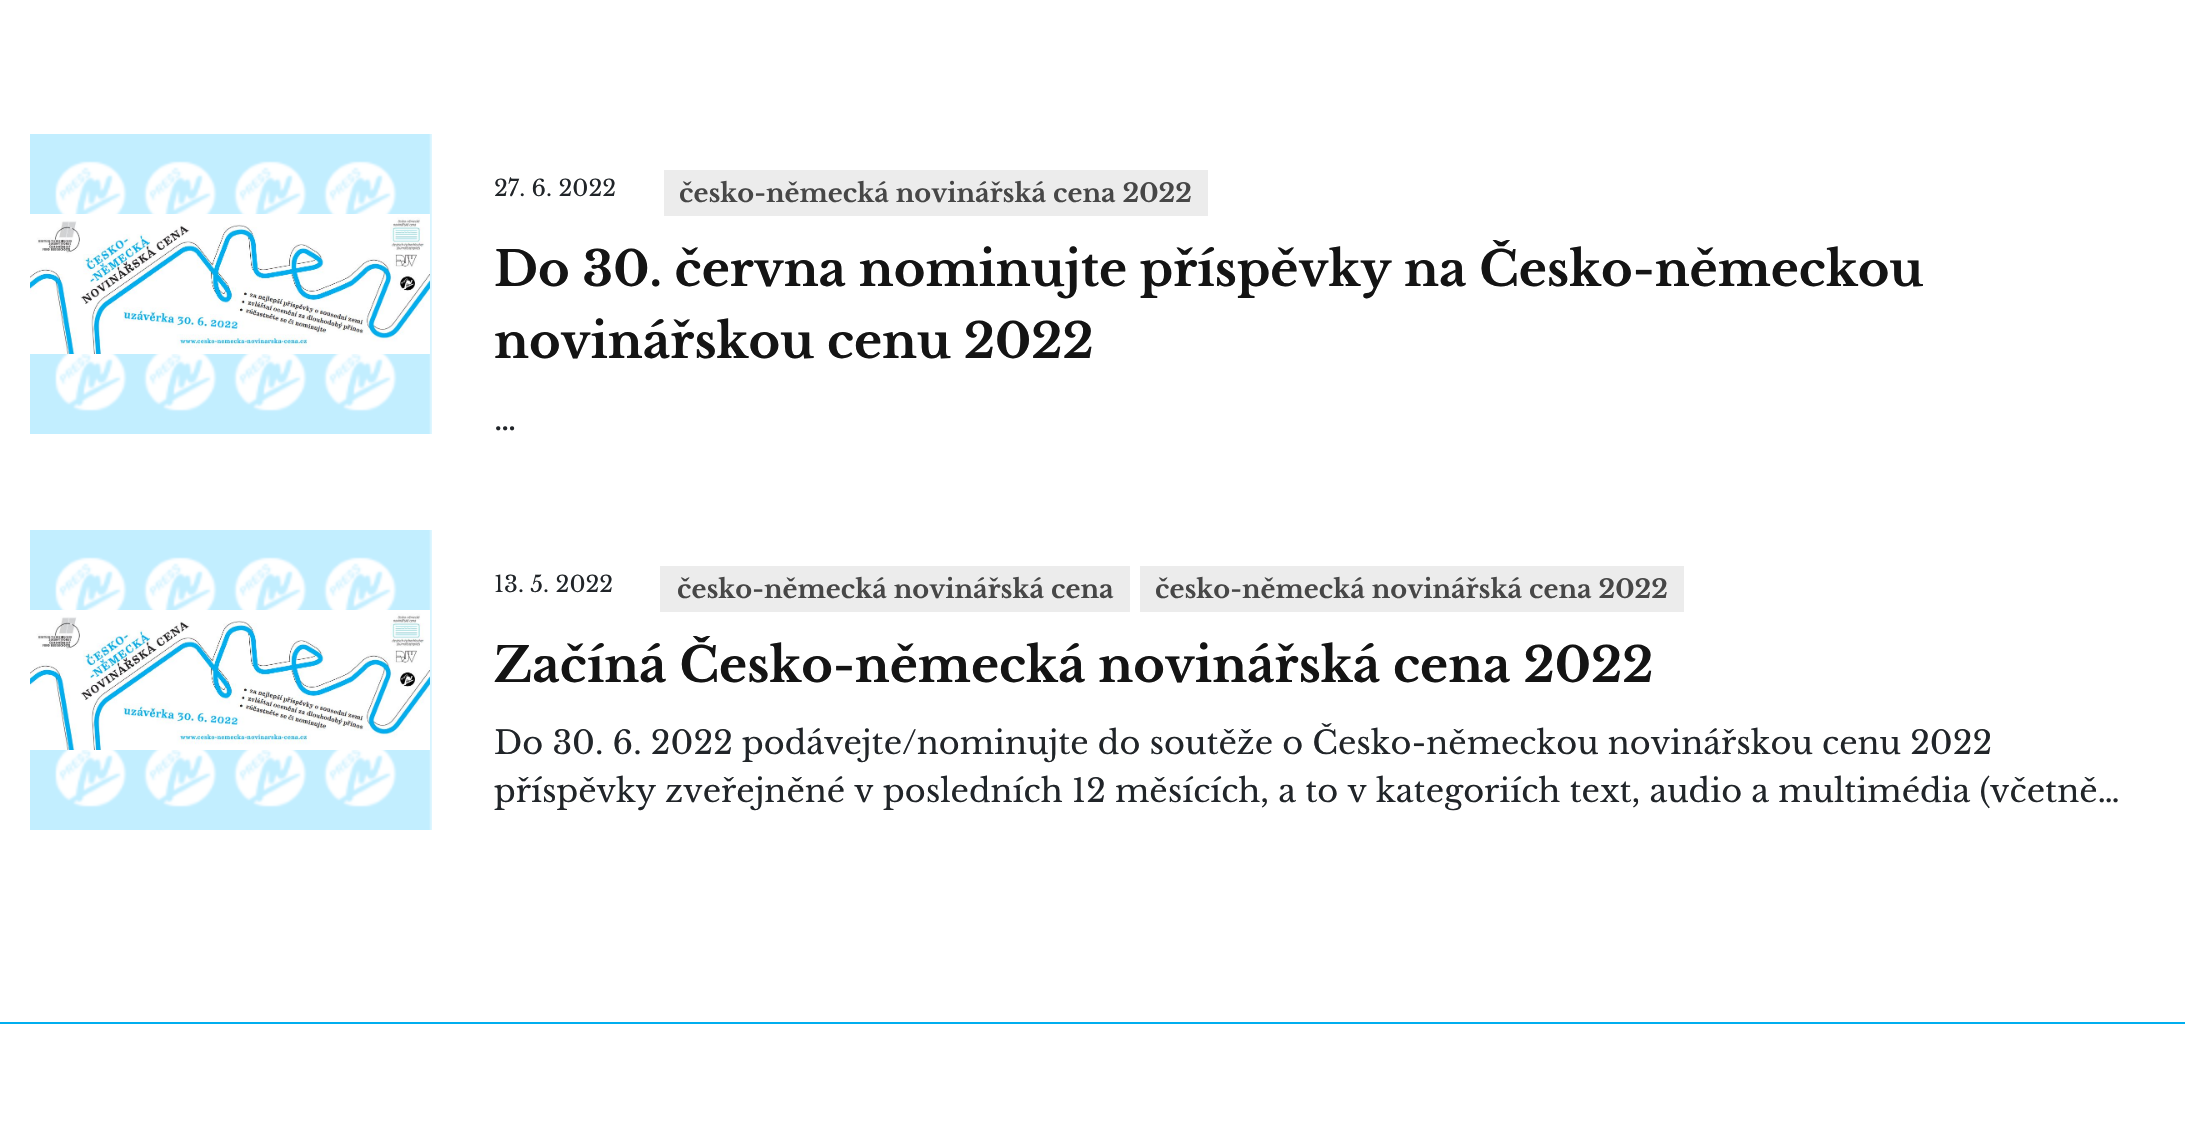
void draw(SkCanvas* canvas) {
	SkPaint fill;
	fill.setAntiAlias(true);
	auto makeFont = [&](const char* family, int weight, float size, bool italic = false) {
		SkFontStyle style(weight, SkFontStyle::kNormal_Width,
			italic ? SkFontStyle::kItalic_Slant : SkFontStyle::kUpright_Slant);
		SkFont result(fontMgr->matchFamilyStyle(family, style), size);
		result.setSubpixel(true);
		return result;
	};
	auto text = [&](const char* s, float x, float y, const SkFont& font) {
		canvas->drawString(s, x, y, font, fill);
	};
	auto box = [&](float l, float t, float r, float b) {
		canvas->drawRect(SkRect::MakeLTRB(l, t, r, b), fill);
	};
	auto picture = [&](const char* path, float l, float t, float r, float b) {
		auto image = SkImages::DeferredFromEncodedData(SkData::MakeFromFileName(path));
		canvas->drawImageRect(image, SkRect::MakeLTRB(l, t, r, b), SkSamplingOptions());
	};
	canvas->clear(0xFFFFFFFF);
	picture("image0.png", 30, 134, 432, 434);
	picture("image1.png", 30, 214, 430, 354);
	fill.setColor(0xFFECECEC);
	box(664, 170, 1208, 216);
	picture("image0.png", 30, 530, 432, 830);
	picture("image1.png", 30, 610, 430, 750);
	box(660, 566, 1130, 612);
	box(1140, 566, 1684, 612);
	fill.setColor(0xFF00AEEF);
	box(0, 1022, 2185, 1024);
	auto font1 = makeFont("Libre Baskerville", 400, 22.5f);
	fill.setColor(0xFF212529);
	text("27. 6. 2022", 494, 196, font1);
	auto font2 = makeFont("Libre Baskerville", 700, 25.6f);
	fill.setColor(0xFF474747);
	text("česko-německá novinářská cena 2022", 679, 202, font2);
	auto font3 = makeFont("Libre Baskerville", 700, 48);
	fill.setColor(0xFF141414);
	text("Do 30. června nominujte příspěvky na Česko-německou", 494, 286, font3);
	text("novinářskou cenu 2022", 494, 358, font3);
	auto font4 = makeFont("Libre Baskerville", 400, 32);
	fill.setColor(0xFF212529);
	text("…", 494, 430, font4);
	text("13. 5. 2022", 494, 592, font1);
	fill.setColor(0xFF474747);
	text("česko-německá novinářská cena", 677, 598, font2);
	text("česko-německá novinářská cena 2022", 1155, 598, font2);
	fill.setColor(0xFF141414);
	text("Začíná Česko-německá novinářská cena 2022", 494, 682, font3);
	fill.setColor(0xFF212529);
	text("Do 30. 6. 2022 podávejte/nominujte do soutěže o Česko-německou novinářskou cenu 2022", 494, 754, font4);
	text("příspěvky zveřejněné v posledních 12 měsících, a to v kategoriích text, audio a multimédia (včetně…", 494, 802, font4);
}
